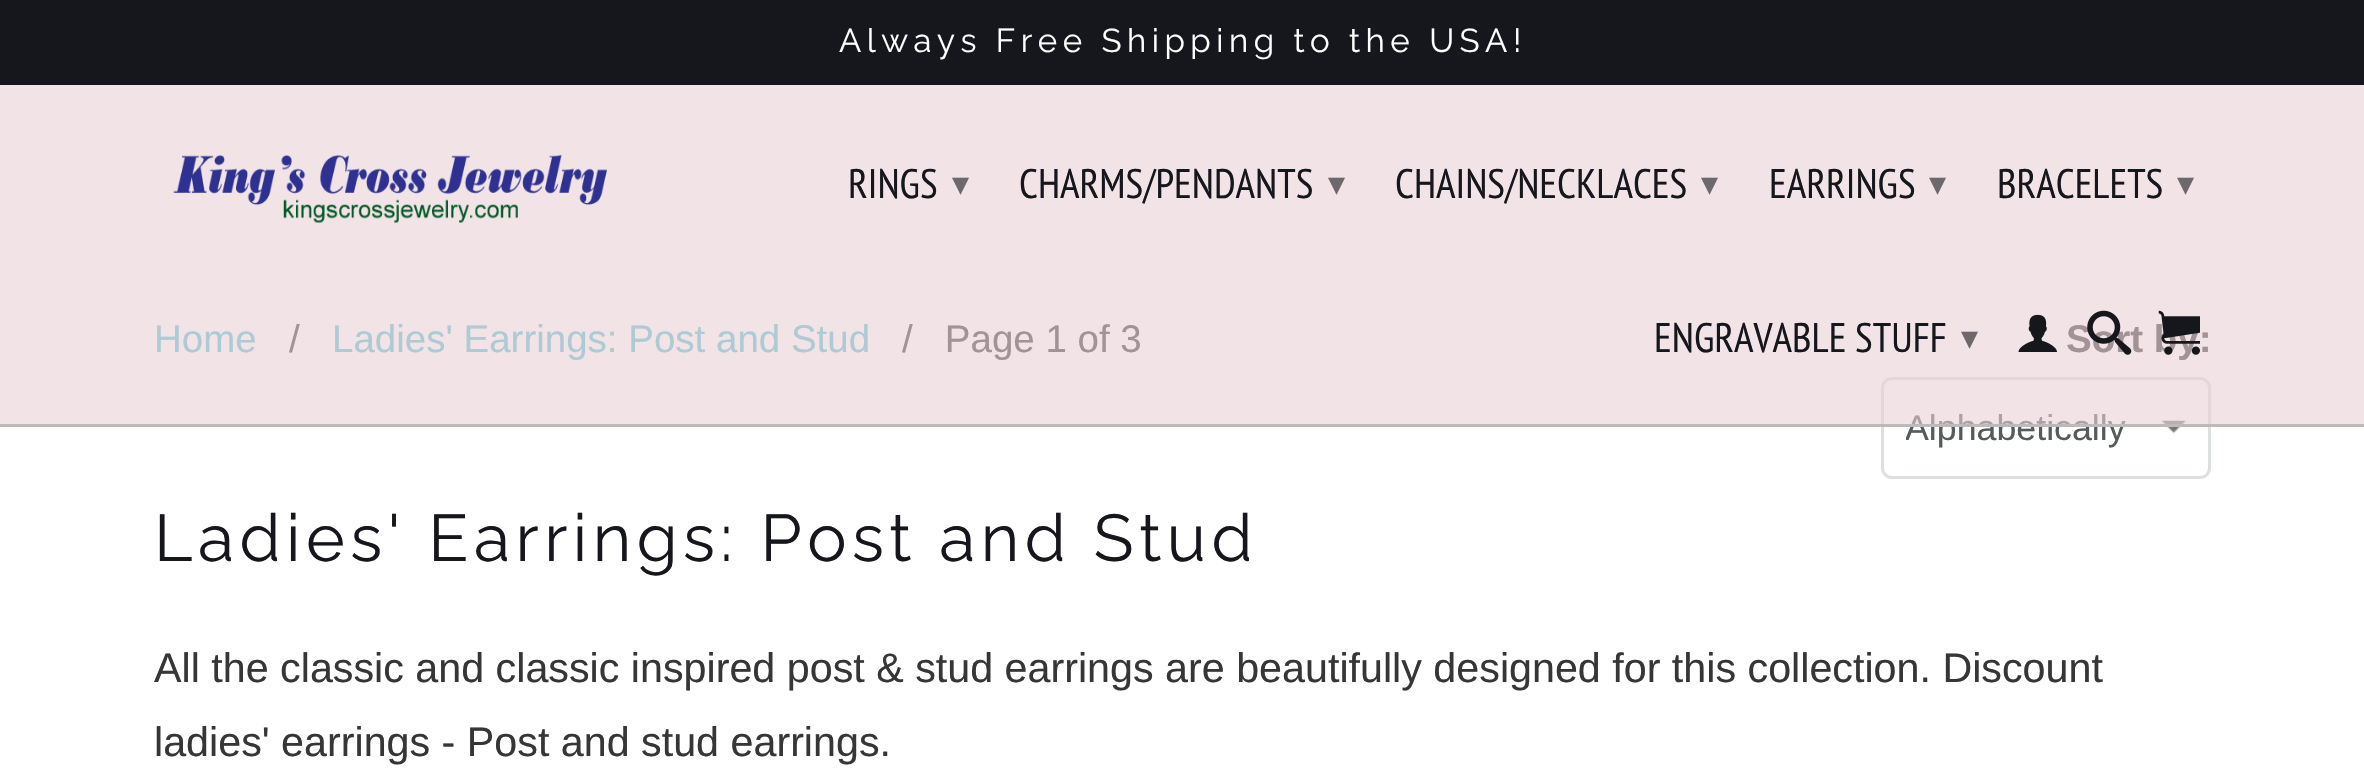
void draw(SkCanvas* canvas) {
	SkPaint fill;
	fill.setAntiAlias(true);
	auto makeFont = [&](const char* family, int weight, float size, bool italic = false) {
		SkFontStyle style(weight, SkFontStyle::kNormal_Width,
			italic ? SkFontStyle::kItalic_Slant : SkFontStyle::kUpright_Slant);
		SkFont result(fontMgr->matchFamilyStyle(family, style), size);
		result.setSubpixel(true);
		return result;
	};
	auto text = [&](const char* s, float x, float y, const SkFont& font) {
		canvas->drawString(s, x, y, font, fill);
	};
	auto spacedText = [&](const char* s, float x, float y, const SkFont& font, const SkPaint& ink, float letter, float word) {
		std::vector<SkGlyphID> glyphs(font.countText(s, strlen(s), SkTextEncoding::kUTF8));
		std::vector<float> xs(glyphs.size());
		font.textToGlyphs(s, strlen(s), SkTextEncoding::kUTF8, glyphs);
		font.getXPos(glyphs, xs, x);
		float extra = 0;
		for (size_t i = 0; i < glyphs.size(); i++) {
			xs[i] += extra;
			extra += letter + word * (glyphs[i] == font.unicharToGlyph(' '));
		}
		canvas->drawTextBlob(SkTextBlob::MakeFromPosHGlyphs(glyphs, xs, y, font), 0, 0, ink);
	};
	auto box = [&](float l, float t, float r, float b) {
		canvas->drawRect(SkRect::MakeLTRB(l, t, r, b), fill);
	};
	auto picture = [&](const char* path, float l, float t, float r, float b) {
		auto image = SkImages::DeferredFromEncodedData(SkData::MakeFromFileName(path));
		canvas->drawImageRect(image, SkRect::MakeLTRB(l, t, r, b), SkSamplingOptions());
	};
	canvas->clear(0xFFFFFFFF);
	fill.setColor(0xFF16161D);
	box(0, 0, 2364, 85);
	picture("image4.png", 2161, 420, 2187, 434);
	fill.setStyle(SkPaint::kStroke_Style);
	fill.setStrokeWidth(3);
	fill.setColor(0xFFDCE0E0);
	canvas->drawRoundRect(SkRect::MakeLTRB(1882.5f, 378.5f, 2209.5f, 477.5f), 9.5f, 9.5f, fill);
	auto font1 = makeFont("Raleway", 400, 33);
	fill.setStyle(SkPaint::kFill_Style);
	fill.setColor(0xFFFFFFFF);
	spacedText("Always Free Shipping to the USA!", 839, 52, font1, fill, 5.5f, 0);
	auto font2 = makeFont("Liberation Sans", 400, 38.5f);
	fill.setColor(0xFF55C0D4);
	text("Home", 154, 352, font2);
	fill.setColor(0xFF363636);
	text("/", 289, 352, font2);
	fill.setColor(0xFF55C0D4);
	text("Ladies' Earrings: Post and Stud", 332, 352, font2);
	fill.setColor(0xFF363636);
	text("/   Page 1 of 3", 902, 352, font2);
	auto font3 = makeFont("Liberation Sans", 700, 38.5f);
	text("Sort by:", 2066, 352, font3);
	canvas->save();
	canvas->clipRect(SkRect::MakeLTRB(1906, 407, 2126, 448));
	auto font4 = makeFont("Liberation Sans", 400, 35.75f);
	fill.setColor(0xFF565A5C);
	text("Alphabetically", 1905, 440, font4);
	canvas->restore();
	fill.setColor(0x99E7D0D6);
	box(0, 85, 2364, 424);
	auto font5 = makeFont("DejaVu Sans", 400, 34);
	fill.setColor(0xFF6D686E);
	text("▾", 1961, 349, font5);
	auto font6 = makeFont("PT Sans Narrow", 400, 41.25f);
	fill.setColor(0xFF16161D);
	text("ENGRAVABLE STUFF", 1654, 352, font6);
	fill.setColor(0xFF6D686E);
	text("▾", 2177, 195, font5);
	fill.setColor(0xFF16161D);
	text("BRACELETS", 1997, 198, font6);
	fill.setColor(0xFF6D686E);
	text("▾", 1929, 195, font5);
	fill.setColor(0xFF16161D);
	text("EARRINGS", 1769, 198, font6);
	fill.setColor(0xFF6D686E);
	text("▾", 1701, 195, font5);
	fill.setColor(0xFF16161D);
	text("CHAINS/NECKLACES", 1395, 198, font6);
	fill.setColor(0xFF6D686E);
	text("▾", 1328, 195, font5);
	fill.setColor(0xFF16161D);
	text("CHARMS/PENDANTS", 1019, 198, font6);
	fill.setColor(0xFF6D686E);
	text("▾", 952, 195, font5);
	fill.setColor(0xFF16161D);
	text("RINGS", 848, 198, font6);
	picture("image3.png", 2158, 310, 2200, 355);
	picture("image2.png", 2087, 310, 2132, 355);
	picture("image1.png", 2018, 314, 2057, 352);
	picture("image0.png", 173, 154, 607, 223);
	fill.setColor(0xFFBBBBBB);
	box(0, 424, 2364, 427);
	auto font7 = makeFont("Raleway", 400, 66);
	fill.setColor(0xFF16161D);
	spacedText("Ladies' Earrings: Post and Stud", 154, 561, font7, fill, 5.5f, 0);
	auto font8 = makeFont("Liberation Sans", 400, 41.25f);
	fill.setColor(0xFF363636);
	text("All the classic and classic inspired post & stud earrings are beautifully designed for this collection. Discount", 154, 682, font8);
	text("ladies' earrings - Post and stud earrings.", 154, 756, font8);
}
